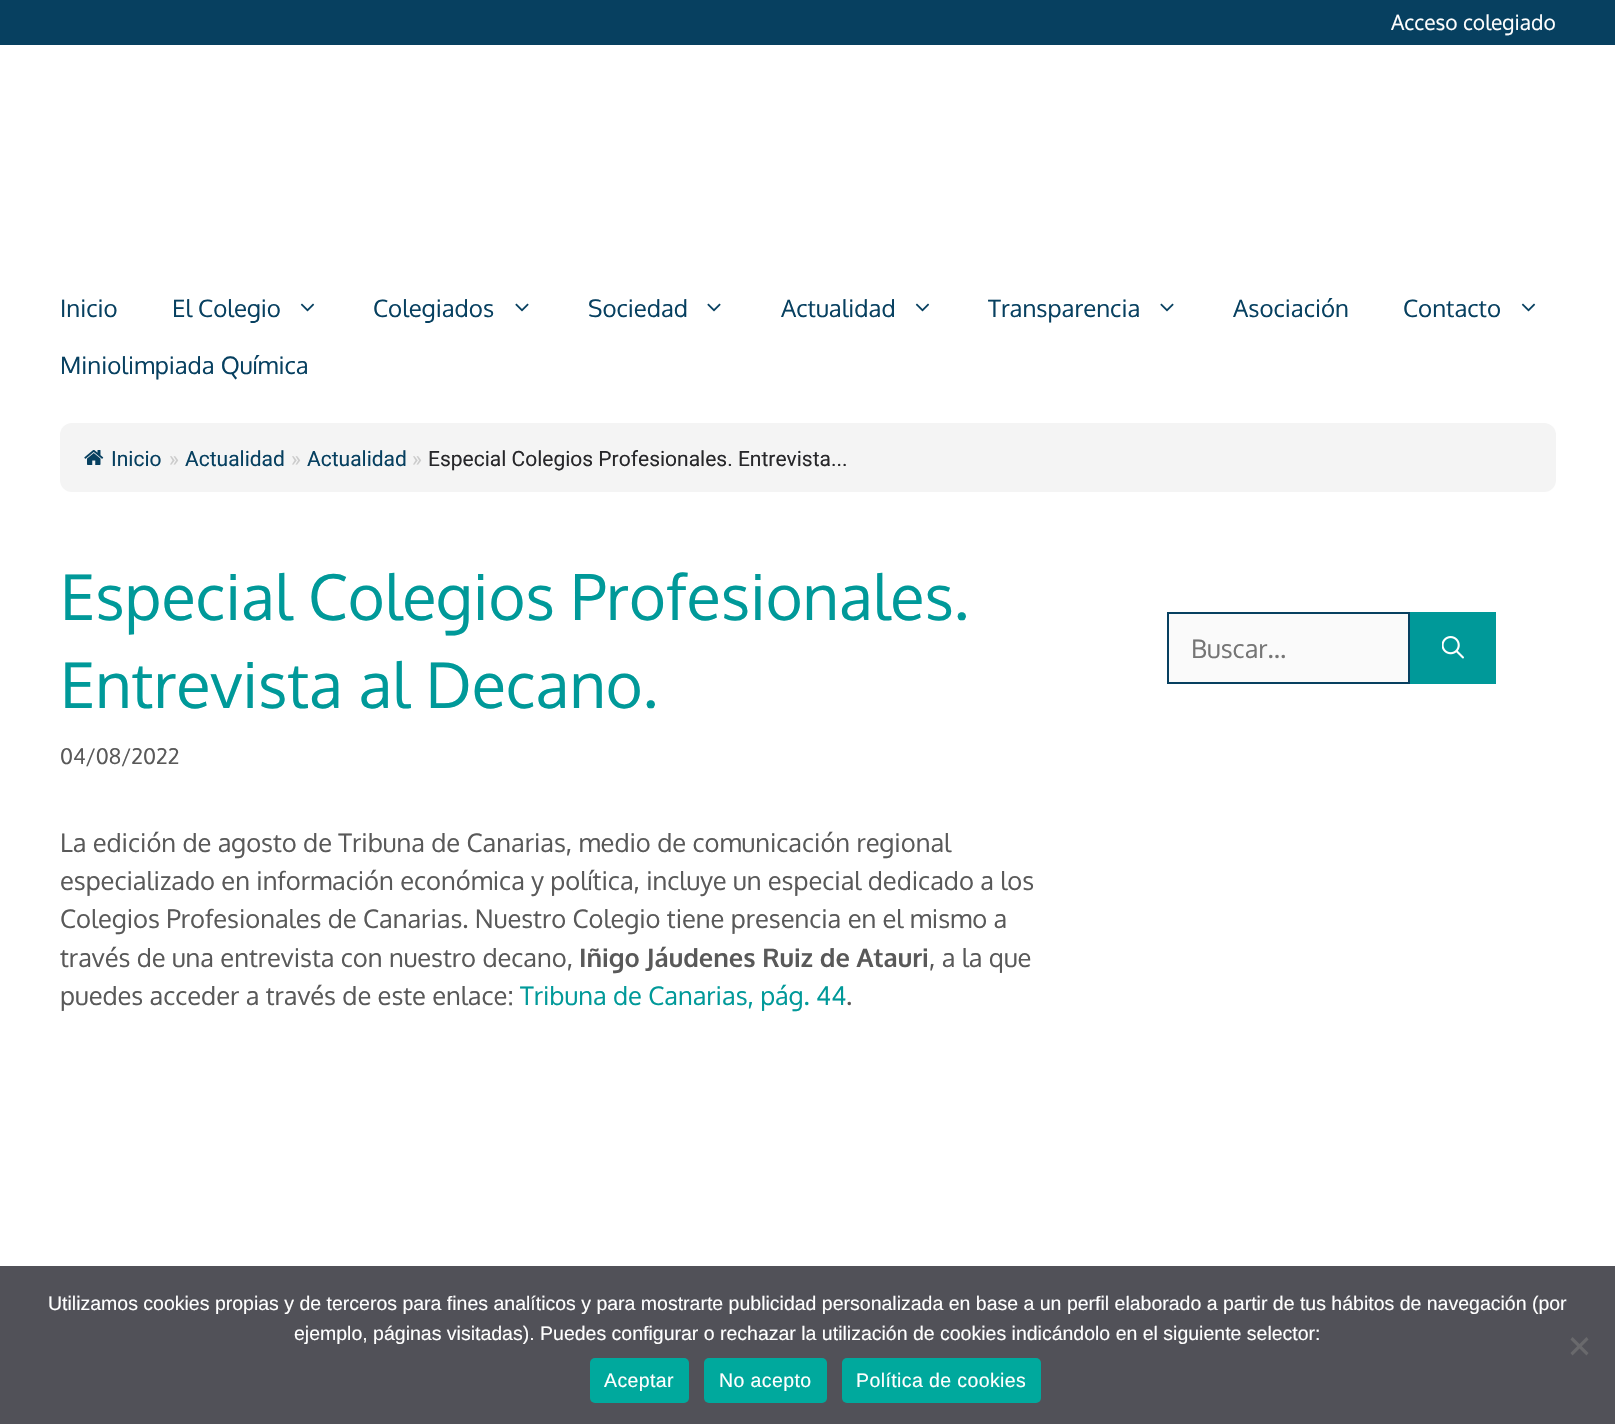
void draw(SkCanvas* canvas) {
	SkPaint fill;
	fill.setAntiAlias(true);
	auto makeFont = [&](const char* family, int weight, float size, bool italic = false) {
		SkFontStyle style(weight, SkFontStyle::kNormal_Width,
			italic ? SkFontStyle::kItalic_Slant : SkFontStyle::kUpright_Slant);
		SkFont result(fontMgr->matchFamilyStyle(family, style), size);
		result.setSubpixel(true);
		return result;
	};
	auto text = [&](const char* s, float x, float y, const SkFont& font) {
		canvas->drawString(s, x, y, font, fill);
	};
	auto spacedText = [&](const char* s, float x, float y, const SkFont& font, const SkPaint& ink, float letter, float word) {
		std::vector<SkGlyphID> glyphs(font.countText(s, strlen(s), SkTextEncoding::kUTF8));
		std::vector<float> xs(glyphs.size());
		font.textToGlyphs(s, strlen(s), SkTextEncoding::kUTF8, glyphs);
		font.getXPos(glyphs, xs, x);
		float extra = 0;
		for (size_t i = 0; i < glyphs.size(); i++) {
			xs[i] += extra;
			extra += letter + word * (glyphs[i] == font.unicharToGlyph(' '));
		}
		canvas->drawTextBlob(SkTextBlob::MakeFromPosHGlyphs(glyphs, xs, y, font), 0, 0, ink);
	};
	auto box = [&](float l, float t, float r, float b) {
		canvas->drawRect(SkRect::MakeLTRB(l, t, r, b), fill);
	};
	auto roundBox = [&](float l, float t, float r, float b, float radius) {
		canvas->drawRoundRect(SkRect::MakeLTRB(l, t, r, b), radius, radius, fill);
	};
	auto picture = [&](const char* path, float l, float t, float r, float b) {
		auto image = SkImages::DeferredFromEncodedData(SkData::MakeFromFileName(path));
		canvas->drawImageRect(image, SkRect::MakeLTRB(l, t, r, b), SkSamplingOptions());
	};
	canvas->clear(0xFFFFFFFF);
	fill.setColor(0xFF074060);
	box(0, 0, 1615, 45);
	picture("image0.png", 300, 303, 315, 312);
	picture("image1.png", 515, 303, 529, 312);
	picture("image1.png", 707, 303, 721, 312);
	picture("image0.png", 915, 303, 930, 312);
	picture("image1.png", 1160, 303, 1174, 312);
	picture("image0.png", 1521, 303, 1536, 312);
	fill.setColor(0xFFF4F4F4);
	roundBox(60, 423, 1556, 492, 12);
	picture("image2.png", 84, 450, 104, 465);
	fill.setColor(0xFFFAFAFA);
	canvas->drawRect(SkRect::MakeLTRB(1168, 613, 1409, 683), fill);
	fill.setStyle(SkPaint::kStroke_Style);
	fill.setStrokeWidth(2);
	fill.setColor(0xFF074060);
	canvas->drawRect(SkRect::MakeLTRB(1168, 613, 1409, 683), fill);
	fill.setStyle(SkPaint::kFill_Style);
	fill.setColor(0xFF009999);
	box(1410, 612, 1496, 684);
	picture("image3.png", 1442, 636, 1464, 659);
	fill.setColor(0xFF515158);
	box(0, 1266, 1615, 1424);
	fill.setColor(0xFF69696C);
	canvas->drawPath(SkPathBuilder().moveTo(1586.5f, 1337).lineTo(1588.5f, 1339.5f).lineTo(1572.5f, 1355.5f).lineTo(1570.5f, 1353).close().detach(), fill);
	canvas->drawPath(SkPathBuilder().moveTo(1570.5f, 1339.5f).lineTo(1572.5f, 1337).lineTo(1588.5f, 1353).lineTo(1586.5f, 1355.5f).close().detach(), fill);
	fill.setColor(0xFF00A99D);
	roundBox(590, 1358, 689, 1403, 5);
	roundBox(704, 1358, 827, 1403, 5);
	roundBox(842, 1358, 1041, 1403, 5);
	auto font1 = makeFont("Oxygen", 400, 21);
	fill.setColor(0xFFFFFFFF);
	text("Acceso colegiado", 1391, 30, font1);
	auto font2 = makeFont("Oxygen", 400, 24);
	fill.setColor(0xFF074060);
	text("Inicio", 60, 317, font2);
	text("El Colegio", 172, 317, font2);
	text("Colegiados", 373, 317, font2);
	text("Sociedad", 588, 317, font2);
	text("Actualidad", 781, 317, font2);
	text("Transparencia", 988, 317, font2);
	text("Asociación", 1233, 317, font2);
	text("Contacto", 1403, 317, font2);
	text("Miniolimpiada Química", 60, 374, font2);
	auto font3 = makeFont("Roboto", 400, 21);
	text("Inicio", 111, 466, font3);
	fill.setColor(0xFFCCCCCC);
	text("»", 169, 466, font3);
	fill.setColor(0xFF074060);
	text("Actualidad", 185, 466, font3);
	fill.setColor(0xFFCCCCCC);
	text("»", 291, 466, font3);
	fill.setColor(0xFF074060);
	text("Actualidad", 307, 466, font3);
	fill.setColor(0xFFCCCCCC);
	text("»", 412, 466, font3);
	fill.setColor(0xFF27272A);
	text("Especial Colegios Profesionales. Entrevista...", 428, 466, font3);
	auto font4 = makeFont("Oxygen", 400, 63);
	fill.setColor(0xFF009999);
	text("Especial Colegios Profesionales.", 60, 620, font4);
	text("Entrevista al Decano.", 60, 708, font4);
	auto font5 = makeFont("Oxygen", 400, 21.5f);
	fill.setColor(0xFF595959);
	text("04/08/2022", 60, 764, font5);
	auto font6 = makeFont("Oxygen", 400, 25.5f);
	text("La edición de agosto de Tribuna de Canarias, medio de comunicación regional", 60, 852, font6);
	text("especializado en información económica y política, incluye un especial dedicado a los", 60, 890, font6);
	text("Colegios Profesionales de Canarias. Nuestro Colegio tiene presencia en el mismo a", 60, 928, font6);
	text("través de una entrevista con nuestro decano,", 60, 967, font6);
	auto font7 = makeFont("Oxygen", 700, 25.5f);
	text("Iñigo Jáudenes Ruiz de Atauri", 579, 967, font7);
	text(", a la que", 929, 967, font6);
	text("puedes acceder a través de este enlace:", 60, 1005, font6);
	fill.setColor(0xFF009999);
	text("Tribuna de Canarias, pág. 44", 520, 1005, font6);
	fill.setColor(0xFF595959);
	text(".", 846, 1005, font6);
	fill.setColor(0xFF757575);
	text("Buscar...", 1191, 658, font6);
	auto font8 = makeFont("Liberation Sans", 400, 19.5f);
	fill.setColor(0xFFFFFFFF);
	text("Utilizamos cookies propias y de terceros para fines analíticos y para mostrarte publicidad personalizada en base a un perfil elaborado a partir de tus hábitos de navegación (por", 48, 1310, font8);
	text("ejemplo, páginas visitadas). Puedes configurar o rechazar la utilización de cookies indicándolo en el siguiente selector:", 294, 1340, font8);
	spacedText("Aceptar", 604, 1387, font8, fill, 0.4f, 0);
	spacedText("No acepto", 719, 1387, font8, fill, 0.4f, 0);
	spacedText("Política de cookies", 856, 1387, font8, fill, 0.4f, 0);
}
